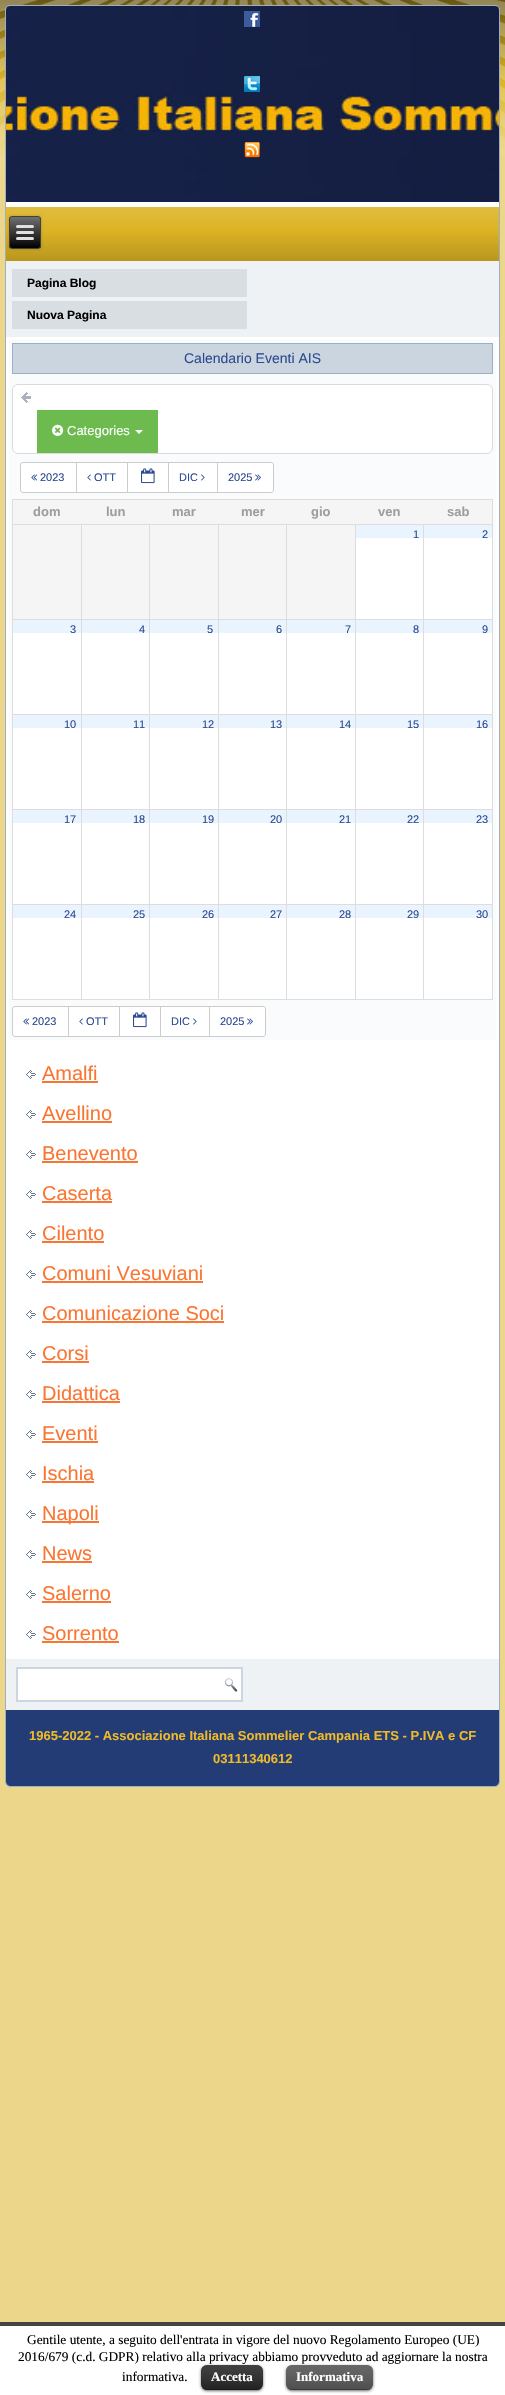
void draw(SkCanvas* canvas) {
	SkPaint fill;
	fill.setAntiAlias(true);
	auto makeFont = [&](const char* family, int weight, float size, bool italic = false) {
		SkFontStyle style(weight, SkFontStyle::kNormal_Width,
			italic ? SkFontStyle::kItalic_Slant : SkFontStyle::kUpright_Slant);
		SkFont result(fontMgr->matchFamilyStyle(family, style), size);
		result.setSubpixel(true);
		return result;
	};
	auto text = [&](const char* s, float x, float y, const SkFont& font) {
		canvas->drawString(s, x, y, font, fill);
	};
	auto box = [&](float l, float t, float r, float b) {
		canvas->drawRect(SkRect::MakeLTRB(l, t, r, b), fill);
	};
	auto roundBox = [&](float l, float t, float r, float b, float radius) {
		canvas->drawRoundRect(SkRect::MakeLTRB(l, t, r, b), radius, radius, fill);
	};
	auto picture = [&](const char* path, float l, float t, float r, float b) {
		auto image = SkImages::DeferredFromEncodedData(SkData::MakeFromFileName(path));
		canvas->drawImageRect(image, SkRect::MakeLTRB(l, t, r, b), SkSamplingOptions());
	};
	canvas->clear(0xFFFFFFFF);
	picture("image0.png", 0, 0, 505, 2322);
	fill.setColor(0xFFFFFFFF);
	canvas->drawRoundRect(SkRect::MakeLTRB(5.5f, 5.5f, 499.5f, 1786.5f), 4.5f, 4.5f, fill);
	fill.setStyle(SkPaint::kStroke_Style);
	fill.setStrokeWidth(1);
	fill.setColor(0xFF9CAFC4);
	canvas->drawRoundRect(SkRect::MakeLTRB(5.5f, 5.5f, 499.5f, 1786.5f), 4.5f, 4.5f, fill);
	picture("image1.png", 6, 6, 499, 202);
	picture("image2.png", 244, 11, 260, 27);
	picture("image3.png", 244, 76, 260, 92);
	picture("image4.png", 244, 142, 260, 158);
	fill.setStyle(SkPaint::kFill_Style);
	{
		const SkColor colors[] = {0xFFE0BD3E, 0xFFDBB324, 0xFFB8971E};
		const float stops[] = {0, 0.43f, 1};
		const SkPoint ends[] = {{253, 207}, {253, 261}};
		fill.setShader(SkGradientShader::MakeLinear(ends, colors, stops, 3, SkTileMode::kClamp));
		fill.setAlpha(255);
	}
	box(6, 207, 499, 261);
	fill.setShader(nullptr);
	fill.setColor(0x33000000);
	fill.setMaskFilter(SkMaskFilter::MakeBlur(kNormal_SkBlurStyle, 1.5f));
	canvas->drawRoundRect(SkRect::MakeLTRB(9, 216, 41, 249), 3, 3, fill);
	fill.setMaskFilter(nullptr);
	canvas->save();
	canvas->clipPath(SkPathBuilder().moveTo(12, 216).lineTo(38, 216).cubicTo(39.5f, 216, 41, 217.5f, 41, 219).lineTo(41, 246).cubicTo(41, 247.5f, 39.5f, 249, 38, 249).lineTo(12, 249).cubicTo(10.5f, 249, 9, 247.5f, 9, 246).lineTo(9, 219).cubicTo(9, 217.5f, 10.5f, 216, 12, 216).close().detach(), true);
	{
		const SkColor colors[] = {0xFF707070, 0xFF000000};
		const float stops[] = {0, 1};
		const SkPoint ends[] = {{25, 217}, {25, 248}};
		fill.setShader(SkGradientShader::MakeLinear(ends, colors, stops, 2, SkTileMode::kClamp));
		fill.setAlpha(255);
	}
	box(9, 217, 41, 248);
	canvas->restore();
	fill.setStyle(SkPaint::kStroke_Style);
	fill.setShader(nullptr);
	fill.setColor(0xFF404040);
	canvas->drawRoundRect(SkRect::MakeLTRB(9.5f, 216.5f, 40.5f, 248.5f), 2.5f, 2.5f, fill);
	fill.setStyle(SkPaint::kFill_Style);
	fill.setColor(0xFFE0E0E0);
	roundBox(16, 225, 34, 228, 1.5f);
	roundBox(16, 231, 34, 234, 1.5f);
	roundBox(16, 237, 34, 240, 1.5f);
	fill.setColor(0xFFEFF2F5);
	box(6, 261, 499, 337);
	fill.setColor(0xFFD9DEE3);
	box(12, 269, 247, 297);
	box(12, 301, 247, 329);
	fill.setColor(0xFFFAFBFC);
	box(9, 340, 496, 1040);
	fill.setColor(0xFFCBD5E0);
	canvas->drawRect(SkRect::MakeLTRB(12.5f, 343.5f, 492.5f, 373.5f), fill);
	fill.setStyle(SkPaint::kStroke_Style);
	fill.setColor(0xFF9CAFC4);
	canvas->drawRect(SkRect::MakeLTRB(12.5f, 343.5f, 492.5f, 373.5f), fill);
	fill.setStyle(SkPaint::kFill_Style);
	fill.setColor(0xFFFFFFFF);
	canvas->drawRoundRect(SkRect::MakeLTRB(12.5f, 384.5f, 492.5f, 453.5f), 5.5f, 5.5f, fill);
	fill.setStyle(SkPaint::kStroke_Style);
	fill.setColor(0xFFDBDBDB);
	canvas->drawRoundRect(SkRect::MakeLTRB(12.5f, 384.5f, 492.5f, 453.5f), 5.5f, 5.5f, fill);
	picture("image5.png", 21, 392, 31, 403);
	fill.setStyle(SkPaint::kFill_Style);
	fill.setColor(0xFF6DBB4F);
	box(37, 410, 158, 453);
	picture("image6.png", 52, 424, 64, 436);
	fill.setColor(0xFFFFFFFF);
	canvas->drawPath(SkPathBuilder().moveTo(135, 430).lineTo(143, 430).lineTo(139, 434).close().detach(), fill);
	canvas->drawPath(SkPathBuilder().moveTo(23, 462.5f).lineTo(76.5f, 462.5f).lineTo(76.5f, 492.5f).lineTo(23, 492.5f).cubicTo(21.5f, 492.5f, 20.5f, 491.5f, 20.5f, 490).lineTo(20.5f, 465).cubicTo(20.5f, 463.5f, 21.5f, 462.5f, 23, 462.5f).close().detach(), fill);
	fill.setStyle(SkPaint::kStroke_Style);
	fill.setColor(0xFFCCCCCC);
	canvas->drawPath(SkPathBuilder().moveTo(23, 462.5f).lineTo(76.5f, 462.5f).lineTo(76.5f, 492.5f).lineTo(23, 492.5f).cubicTo(21.5f, 492.5f, 20.5f, 491.5f, 20.5f, 490).lineTo(20.5f, 465).cubicTo(20.5f, 463.5f, 21.5f, 462.5f, 23, 462.5f).close().detach(), fill);
	picture("image7.png", 31, 474, 38, 481);
	fill.setStyle(SkPaint::kFill_Style);
	fill.setColor(0xFFFFFFFF);
	canvas->drawRect(SkRect::MakeLTRB(76.5f, 462.5f, 127.5f, 492.5f), fill);
	fill.setStyle(SkPaint::kStroke_Style);
	fill.setColor(0xFFCCCCCC);
	canvas->drawRect(SkRect::MakeLTRB(76.5f, 462.5f, 127.5f, 492.5f), fill);
	picture("image8.png", 87, 474, 91, 481);
	fill.setStyle(SkPaint::kFill_Style);
	fill.setColor(0xFFFFFFFF);
	canvas->drawRect(SkRect::MakeLTRB(127.5f, 462.5f, 168.5f, 492.5f), fill);
	fill.setStyle(SkPaint::kStroke_Style);
	fill.setColor(0xFFCCCCCC);
	canvas->drawRect(SkRect::MakeLTRB(127.5f, 462.5f, 168.5f, 492.5f), fill);
	picture("image9.png", 141, 468, 155, 484);
	fill.setStyle(SkPaint::kFill_Style);
	fill.setColor(0xFFFFFFFF);
	canvas->drawRect(SkRect::MakeLTRB(168.5f, 462.5f, 217.5f, 492.5f), fill);
	fill.setStyle(SkPaint::kStroke_Style);
	fill.setColor(0xFFCCCCCC);
	canvas->drawRect(SkRect::MakeLTRB(168.5f, 462.5f, 217.5f, 492.5f), fill);
	picture("image10.png", 201, 474, 205, 481);
	fill.setStyle(SkPaint::kFill_Style);
	fill.setColor(0xFFFFFFFF);
	canvas->drawPath(SkPathBuilder().moveTo(217.5f, 462.5f).lineTo(271, 462.5f).cubicTo(272.5f, 462.5f, 273.5f, 463.5f, 273.5f, 465).lineTo(273.5f, 490).cubicTo(273.5f, 491.5f, 272.5f, 492.5f, 271, 492.5f).lineTo(217.5f, 492.5f).close().detach(), fill);
	fill.setStyle(SkPaint::kStroke_Style);
	fill.setColor(0xFFCCCCCC);
	canvas->drawPath(SkPathBuilder().moveTo(217.5f, 462.5f).lineTo(271, 462.5f).cubicTo(272.5f, 462.5f, 273.5f, 463.5f, 273.5f, 465).lineTo(273.5f, 490).cubicTo(273.5f, 491.5f, 272.5f, 492.5f, 271, 492.5f).lineTo(217.5f, 492.5f).close().detach(), fill);
	picture("image11.png", 255, 474, 261, 481);
	fill.setStyle(SkPaint::kFill_Style);
	fill.setColor(0xFFFFFFFF);
	box(13, 538, 492, 999);
	fill.setColor(0xFFDDDDDD);
	box(12, 499, 493, 500);
	box(492, 499, 493, 1000);
	box(12, 999, 493, 1000);
	box(12, 499, 13, 1000);
	fill.setColor(0xFFF5F5F5);
	box(13, 500, 492, 524);
	box(13, 525, 81, 619);
	fill.setColor(0xFFDDDDDD);
	box(423, 524, 493, 525);
	box(423, 619, 493, 620);
	box(423, 714, 493, 715);
	box(423, 809, 493, 810);
	box(423, 904, 493, 905);
	box(423, 904, 424, 1000);
	box(355, 904, 424, 905);
	box(423, 809, 424, 905);
	box(355, 809, 424, 810);
	box(423, 714, 424, 810);
	box(355, 714, 424, 715);
	box(423, 619, 424, 715);
	box(355, 619, 424, 620);
	box(423, 524, 424, 620);
	box(355, 524, 424, 525);
	box(355, 904, 356, 1000);
	box(286, 904, 356, 905);
	box(355, 809, 356, 905);
	box(286, 809, 356, 810);
	box(355, 714, 356, 810);
	box(286, 714, 356, 715);
	box(355, 619, 356, 715);
	box(286, 619, 356, 620);
	box(355, 524, 356, 620);
	box(286, 524, 356, 525);
	box(286, 904, 287, 1000);
	box(218, 904, 287, 905);
	box(286, 809, 287, 905);
	box(218, 809, 287, 810);
	box(286, 714, 287, 810);
	box(218, 714, 287, 715);
	box(286, 619, 287, 715);
	box(218, 619, 287, 620);
	box(286, 524, 287, 620);
	box(218, 524, 287, 525);
	box(218, 904, 219, 1000);
	box(149, 904, 219, 905);
	box(218, 809, 219, 905);
	box(149, 809, 219, 810);
	box(218, 714, 219, 810);
	box(149, 714, 219, 715);
	box(218, 619, 219, 715);
	box(149, 619, 219, 620);
	box(218, 524, 219, 620);
	box(149, 524, 219, 525);
	box(149, 904, 150, 1000);
	box(81, 904, 150, 905);
	box(149, 809, 150, 905);
	box(81, 809, 150, 810);
	box(149, 714, 150, 810);
	box(81, 714, 150, 715);
	box(149, 619, 150, 715);
	box(81, 619, 150, 620);
	box(149, 524, 150, 620);
	box(81, 524, 150, 525);
	box(81, 904, 82, 1000);
	box(12, 904, 82, 905);
	box(81, 809, 82, 905);
	box(12, 809, 82, 810);
	box(81, 714, 82, 810);
	box(12, 714, 82, 715);
	box(81, 619, 82, 715);
	box(12, 619, 82, 620);
	box(81, 524, 82, 620);
	box(12, 524, 82, 525);
	fill.setColor(0xFFF5F5F5);
	box(82, 525, 149, 619);
	box(150, 525, 218, 619);
	box(219, 525, 286, 619);
	box(287, 525, 355, 619);
	fill.setColor(0xFFEAF4FF);
	box(356, 525, 423, 538);
	box(424, 525, 492, 538);
	box(13, 620, 81, 633);
	box(82, 620, 149, 633);
	box(150, 620, 218, 633);
	box(219, 620, 286, 633);
	box(287, 620, 355, 633);
	box(356, 620, 423, 633);
	box(424, 620, 492, 633);
	box(13, 715, 81, 728);
	box(82, 715, 149, 728);
	box(150, 715, 218, 728);
	box(219, 715, 286, 728);
	box(287, 715, 355, 728);
	box(356, 715, 423, 728);
	box(424, 715, 492, 728);
	box(13, 810, 81, 823);
	box(82, 810, 149, 823);
	box(150, 810, 218, 823);
	box(219, 810, 286, 823);
	box(287, 810, 355, 823);
	box(356, 810, 423, 823);
	box(424, 810, 492, 823);
	box(13, 905, 81, 918);
	box(82, 905, 149, 918);
	box(150, 905, 218, 918);
	box(219, 905, 286, 918);
	box(287, 905, 355, 918);
	box(356, 905, 423, 918);
	box(424, 905, 492, 918);
	fill.setColor(0xFFFFFFFF);
	canvas->drawPath(SkPathBuilder().moveTo(15, 1006.5f).lineTo(68.5f, 1006.5f).lineTo(68.5f, 1036.5f).lineTo(15, 1036.5f).cubicTo(13.5f, 1036.5f, 12.5f, 1035.5f, 12.5f, 1034).lineTo(12.5f, 1009).cubicTo(12.5f, 1007.5f, 13.5f, 1006.5f, 15, 1006.5f).close().detach(), fill);
	fill.setStyle(SkPaint::kStroke_Style);
	fill.setColor(0xFFCCCCCC);
	canvas->drawPath(SkPathBuilder().moveTo(15, 1006.5f).lineTo(68.5f, 1006.5f).lineTo(68.5f, 1036.5f).lineTo(15, 1036.5f).cubicTo(13.5f, 1036.5f, 12.5f, 1035.5f, 12.5f, 1034).lineTo(12.5f, 1009).cubicTo(12.5f, 1007.5f, 13.5f, 1006.5f, 15, 1006.5f).close().detach(), fill);
	picture("image7.png", 23, 1018, 30, 1025);
	fill.setStyle(SkPaint::kFill_Style);
	fill.setColor(0xFFFFFFFF);
	canvas->drawRect(SkRect::MakeLTRB(68.5f, 1006.5f, 119.5f, 1036.5f), fill);
	fill.setStyle(SkPaint::kStroke_Style);
	fill.setColor(0xFFCCCCCC);
	canvas->drawRect(SkRect::MakeLTRB(68.5f, 1006.5f, 119.5f, 1036.5f), fill);
	picture("image8.png", 79, 1018, 83, 1025);
	fill.setStyle(SkPaint::kFill_Style);
	fill.setColor(0xFFFFFFFF);
	canvas->drawRect(SkRect::MakeLTRB(119.5f, 1006.5f, 160.5f, 1036.5f), fill);
	fill.setStyle(SkPaint::kStroke_Style);
	fill.setColor(0xFFCCCCCC);
	canvas->drawRect(SkRect::MakeLTRB(119.5f, 1006.5f, 160.5f, 1036.5f), fill);
	picture("image9.png", 133, 1012, 147, 1028);
	fill.setStyle(SkPaint::kFill_Style);
	fill.setColor(0xFFFFFFFF);
	canvas->drawRect(SkRect::MakeLTRB(160.5f, 1006.5f, 209.5f, 1036.5f), fill);
	fill.setStyle(SkPaint::kStroke_Style);
	fill.setColor(0xFFCCCCCC);
	canvas->drawRect(SkRect::MakeLTRB(160.5f, 1006.5f, 209.5f, 1036.5f), fill);
	picture("image10.png", 193, 1018, 197, 1025);
	fill.setStyle(SkPaint::kFill_Style);
	fill.setColor(0xFFFFFFFF);
	canvas->drawPath(SkPathBuilder().moveTo(209.5f, 1006.5f).lineTo(263, 1006.5f).cubicTo(264.5f, 1006.5f, 265.5f, 1007.5f, 265.5f, 1009).lineTo(265.5f, 1034).cubicTo(265.5f, 1035.5f, 264.5f, 1036.5f, 263, 1036.5f).lineTo(209.5f, 1036.5f).close().detach(), fill);
	fill.setStyle(SkPaint::kStroke_Style);
	fill.setColor(0xFFCCCCCC);
	canvas->drawPath(SkPathBuilder().moveTo(209.5f, 1006.5f).lineTo(263, 1006.5f).cubicTo(264.5f, 1006.5f, 265.5f, 1007.5f, 265.5f, 1009).lineTo(265.5f, 1034).cubicTo(265.5f, 1035.5f, 264.5f, 1036.5f, 263, 1036.5f).lineTo(209.5f, 1036.5f).close().detach(), fill);
	picture("image11.png", 247, 1018, 253, 1025);
	picture("image12.png", 26, 1070, 36, 1079);
	fill.setStyle(SkPaint::kFill_Style);
	fill.setColor(0xFFFB7532);
	box(42, 1081, 98, 1083);
	picture("image12.png", 26, 1110, 36, 1119);
	box(42, 1121, 112, 1123);
	picture("image12.png", 26, 1150, 36, 1159);
	box(42, 1161, 138, 1163);
	picture("image12.png", 26, 1190, 36, 1199);
	box(42, 1201, 112, 1203);
	picture("image12.png", 26, 1230, 36, 1239);
	box(42, 1241, 104, 1243);
	picture("image12.png", 26, 1270, 36, 1279);
	box(42, 1281, 203, 1283);
	picture("image12.png", 26, 1310, 36, 1319);
	box(42, 1321, 224, 1323);
	picture("image12.png", 26, 1350, 36, 1359);
	box(42, 1361, 89, 1363);
	picture("image12.png", 26, 1390, 36, 1399);
	box(42, 1401, 120, 1403);
	picture("image12.png", 26, 1430, 36, 1439);
	box(42, 1441, 98, 1443);
	picture("image12.png", 26, 1470, 36, 1479);
	box(42, 1481, 94, 1483);
	picture("image12.png", 26, 1510, 36, 1519);
	box(42, 1521, 99, 1523);
	picture("image12.png", 26, 1550, 36, 1559);
	box(42, 1561, 92, 1563);
	picture("image12.png", 26, 1590, 36, 1599);
	box(42, 1601, 111, 1603);
	picture("image12.png", 26, 1630, 36, 1639);
	box(42, 1641, 119, 1643);
	fill.setColor(0xFFEFF2F5);
	box(6, 1659, 499, 1710);
	fill.setColor(0xFFFFFFFF);
	canvas->drawRect(SkRect::MakeLTRB(17, 1668, 242, 1701), fill);
	fill.setStyle(SkPaint::kStroke_Style);
	fill.setStrokeWidth(2);
	fill.setColor(0xFFCCD6E0);
	canvas->drawRect(SkRect::MakeLTRB(17, 1668, 242, 1701), fill);
	picture("image13.png", 224, 1678, 238, 1692);
	fill.setStyle(SkPaint::kFill_Style);
	fill.setColor(0xFF233C76);
	canvas->drawPath(SkPathBuilder().moveTo(6, 1710).lineTo(499, 1710).lineTo(499, 1782).cubicTo(499, 1784, 497, 1786, 495, 1786).lineTo(10, 1786).cubicTo(8, 1786, 6, 1784, 6, 1782).close().detach(), fill);
	fill.setColor(0xFF444444);
	box(0, 2322, 505, 2326);
	fill.setColor(0x99000000);
	fill.setMaskFilter(SkMaskFilter::MakeBlur(kNormal_SkBlurStyle, 1.5f));
	canvas->drawRoundRect(SkRect::MakeLTRB(201, 2366, 263, 2391), 6, 6, fill);
	fill.setMaskFilter(nullptr);
	fill.setColor(0xFF000000);
	roundBox(201, 2365, 263, 2390, 6);
	picture("image14.png", 201, 2365, 263, 2390);
	fill.setColor(0x40000000);
	box(204, 2389, 260, 2390);
	fill.setColor(0x99000000);
	fill.setMaskFilter(SkMaskFilter::MakeBlur(kNormal_SkBlurStyle, 1.5f));
	canvas->drawRoundRect(SkRect::MakeLTRB(286, 2366, 373, 2391), 6, 6, fill);
	fill.setMaskFilter(nullptr);
	fill.setColor(0xFF333333);
	roundBox(286, 2365, 373, 2390, 6);
	picture("image15.png", 286, 2365, 373, 2390);
	fill.setColor(0x40000000);
	box(289, 2389, 370, 2390);
	auto font1 = makeFont("Liberation Sans", 700, 12);
	fill.setColor(0xFF000000);
	text("Pagina Blog", 27, 287, font1);
	text("Nuova Pagina", 27, 319, font1);
	auto font2 = makeFont("Liberation Sans", 400, 14);
	fill.setColor(0xFF2C4A90);
	text("Calendario Eventi AIS", 184, 363, font2);
	auto font3 = makeFont("Liberation Sans", 400, 13);
	fill.setColor(0xFFFFFFFF);
	text("Categories", 67, 435, font3);
	auto font4 = makeFont("Liberation Sans", 400, 11);
	fill.setColor(0xFF2C4A90);
	text("2023", 40, 481, font4);
	text("OTT", 94, 481, font4);
	text("DIC", 179, 481, font4);
	text("2025", 228, 481, font4);
	auto font5 = makeFont("Liberation Sans", 700, 13);
	fill.setColor(0xFF9E9E9E);
	text("dom", 33, 516, font5);
	text("lun", 106, 516, font5);
	text("mar", 172, 516, font5);
	text("mer", 241, 516, font5);
	text("gio", 311, 516, font5);
	text("ven", 378, 516, font5);
	text("sab", 447, 516, font5);
	fill.setColor(0xFF2C4A90);
	text("1", 413, 538, font4);
	text("2", 482, 538, font4);
	text("3", 70, 633, font4);
	text("4", 139, 633, font4);
	text("5", 207, 633, font4);
	text("6", 276, 633, font4);
	text("7", 345, 633, font4);
	text("8", 413, 633, font4);
	text("9", 482, 633, font4);
	text("10", 64, 728, font4);
	text("11", 133, 728, font4);
	text("12", 202, 728, font4);
	text("13", 270, 728, font4);
	text("14", 339, 728, font4);
	text("15", 407, 728, font4);
	text("16", 476, 728, font4);
	text("17", 64, 823, font4);
	text("18", 133, 823, font4);
	text("19", 202, 823, font4);
	text("20", 270, 823, font4);
	text("21", 339, 823, font4);
	text("22", 407, 823, font4);
	text("23", 476, 823, font4);
	text("24", 64, 918, font4);
	text("25", 133, 918, font4);
	text("26", 202, 918, font4);
	text("27", 270, 918, font4);
	text("28", 339, 918, font4);
	text("29", 407, 918, font4);
	text("30", 476, 918, font4);
	text("2023", 32, 1025, font4);
	text("OTT", 86, 1025, font4);
	text("DIC", 171, 1025, font4);
	text("2025", 220, 1025, font4);
	auto font6 = makeFont("Liberation Sans", 400, 20);
	fill.setColor(0xFFFB7532);
	text("Amalfi", 42, 1080, font6);
	text("Avellino", 42, 1120, font6);
	text("Benevento", 42, 1160, font6);
	text("Caserta", 42, 1200, font6);
	text("Cilento", 42, 1240, font6);
	text("Comuni Vesuviani", 42, 1280, font6);
	text("Comunicazione Soci", 42, 1320, font6);
	text("Corsi", 42, 1360, font6);
	text("Didattica", 42, 1400, font6);
	text("Eventi", 42, 1440, font6);
	text("Ischia", 42, 1480, font6);
	text("Napoli", 42, 1520, font6);
	text("News", 42, 1560, font6);
	text("Salerno", 42, 1600, font6);
	text("Sorrento", 42, 1640, font6);
	fill.setColor(0xFFEFBA2A);
	text("1965-2022 - Associazione Italiana Sommelier Campania ETS - P.IVA e CF", 29, 1740, font5);
	text("03111340612", 213, 1763, font5);
	auto font7 = makeFont("Liberation Serif", 400, 13.35f);
	fill.setColor(0xFF000000);
	text("Gentile utente, a seguito dell'entrata in vigore del nuovo Regolamento Europeo (UE)", 27, 2344, font7);
	text("2016/679 (c.d. GDPR) relativo alla privacy abbiamo provveduto ad aggiornare la nostra", 18, 2361, font7);
	text("informativa.", 122, 2381, font7);
	auto font8 = makeFont("Liberation Serif", 700, 13);
	fill.setColor(0xFFFFFFFF);
	text("Accetta", 211, 2381, font8);
	text("Informativa", 296, 2381, font8);
}
